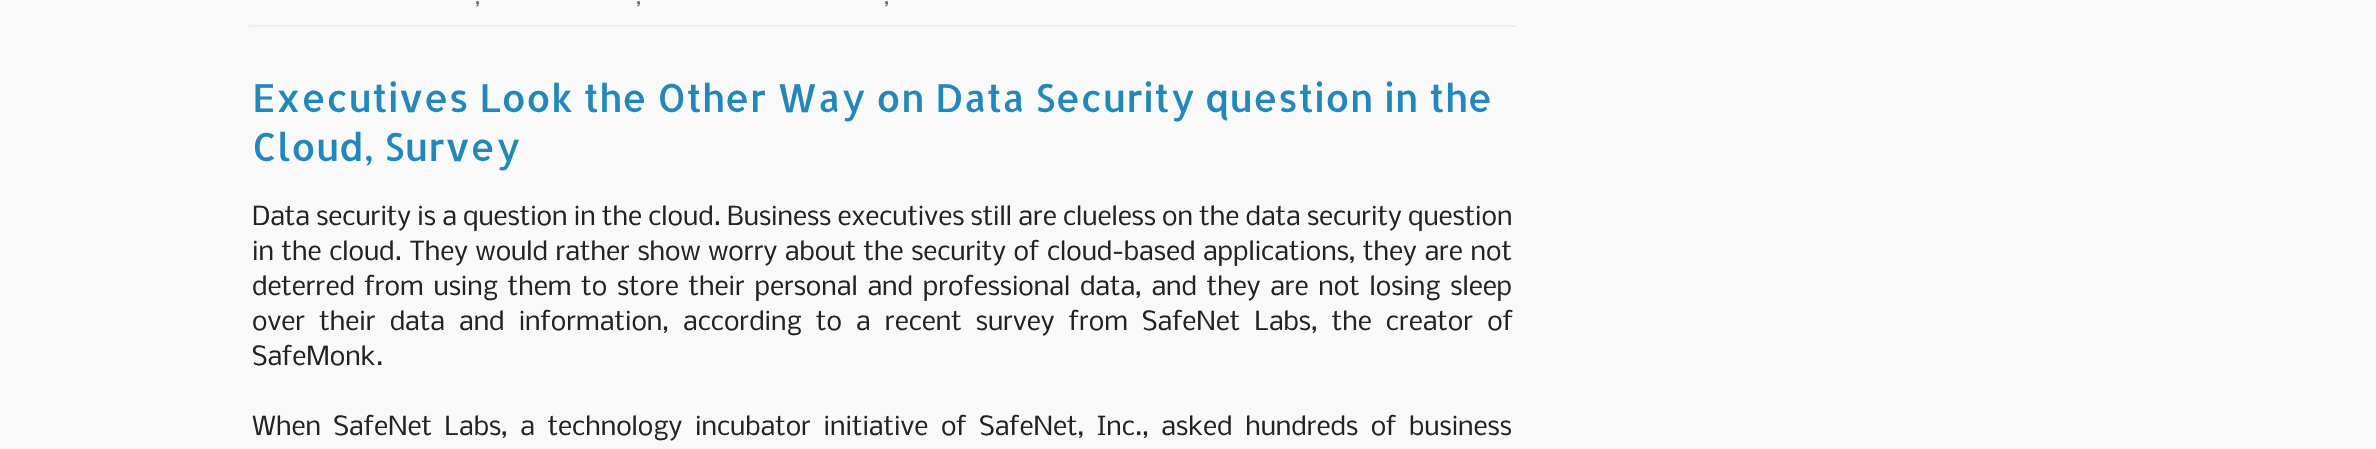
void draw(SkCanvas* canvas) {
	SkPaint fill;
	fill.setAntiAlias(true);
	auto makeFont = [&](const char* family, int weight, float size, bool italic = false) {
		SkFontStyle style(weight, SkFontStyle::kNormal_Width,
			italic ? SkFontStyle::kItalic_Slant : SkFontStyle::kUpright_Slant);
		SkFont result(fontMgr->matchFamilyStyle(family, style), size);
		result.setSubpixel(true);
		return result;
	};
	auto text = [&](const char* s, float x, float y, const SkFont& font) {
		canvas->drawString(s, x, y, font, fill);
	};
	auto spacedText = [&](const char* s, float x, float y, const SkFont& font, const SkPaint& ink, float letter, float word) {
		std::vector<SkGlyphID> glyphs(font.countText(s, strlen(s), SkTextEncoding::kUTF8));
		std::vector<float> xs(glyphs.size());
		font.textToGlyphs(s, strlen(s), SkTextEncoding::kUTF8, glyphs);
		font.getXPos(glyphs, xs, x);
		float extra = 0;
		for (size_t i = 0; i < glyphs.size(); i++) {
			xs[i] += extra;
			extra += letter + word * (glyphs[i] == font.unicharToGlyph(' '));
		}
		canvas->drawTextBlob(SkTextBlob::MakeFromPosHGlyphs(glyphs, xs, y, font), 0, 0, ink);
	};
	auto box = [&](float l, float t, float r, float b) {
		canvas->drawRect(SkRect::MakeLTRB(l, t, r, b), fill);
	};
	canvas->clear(0xFFF9F9F9);
	fill.setColor(0xFFEEEEEE);
	box(249, 25, 1516, 27);
	auto font1 = makeFont("Nobile", 400, 20);
	fill.setColor(0xFF666666);
	text(",", 475, 4, font1);
	text(",", 636, 4, font1);
	text(",", 884, 4, font1);
	auto font2 = makeFont("Allerta", 400, 38.5f);
	fill.setColor(0xFF2288BB);
	text("Executives Look the Other Way on Data Security question in the", 252, 112, font2);
	text("Cloud, Survey", 252, 161, font2);
	auto font3 = makeFont("Nobile", 400, 25.03f);
	fill.setColor(0xFF222222);
	text("Data security is a question in the cloud. Business executives still are clueless on the data security question", 252, 225, font3);
	spacedText("in the cloud. They would rather show worry about the security of cloud-based applications, they are not", 252, 260, font3, fill, 0, 1.4f);
	spacedText("deterred from using them to store their personal and professional data, and they are not losing sleep", 252, 295, font3, fill, 0, 3.5f);
	spacedText("over their data and information, according to a recent survey from SafeNet Labs, the creator of", 252, 330, font3, fill, 0, 7.9f);
	text("SafeMonk.", 252, 365, font3);
	spacedText("When SafeNet Labs, a technology incubator initiative of SafeNet, Inc., asked hundreds of business", 252, 435, font3, fill, 0, 6.4f);
}
